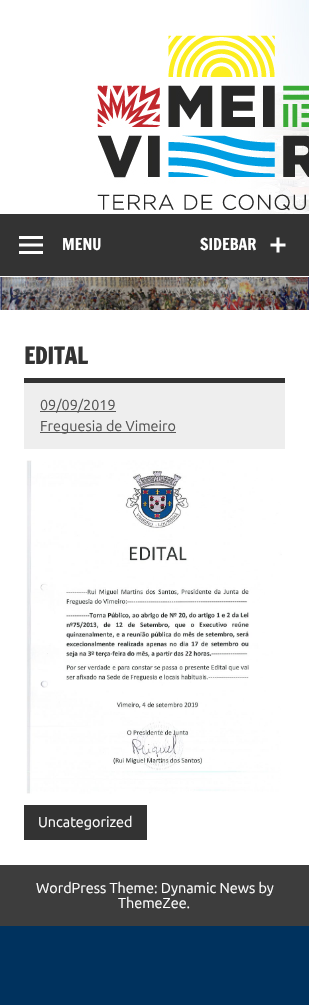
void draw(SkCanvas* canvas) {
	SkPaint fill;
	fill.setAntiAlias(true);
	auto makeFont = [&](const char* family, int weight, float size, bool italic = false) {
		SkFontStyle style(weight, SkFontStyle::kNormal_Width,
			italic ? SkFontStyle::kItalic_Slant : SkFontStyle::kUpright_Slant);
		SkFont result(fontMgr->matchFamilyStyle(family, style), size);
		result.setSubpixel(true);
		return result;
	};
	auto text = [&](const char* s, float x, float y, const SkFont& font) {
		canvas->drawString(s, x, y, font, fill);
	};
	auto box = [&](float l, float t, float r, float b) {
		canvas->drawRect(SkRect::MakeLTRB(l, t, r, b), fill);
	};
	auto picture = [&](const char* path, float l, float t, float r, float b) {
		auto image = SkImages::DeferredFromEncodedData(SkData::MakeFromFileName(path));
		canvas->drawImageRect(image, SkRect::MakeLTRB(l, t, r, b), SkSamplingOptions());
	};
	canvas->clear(0xFF00325E);
	fill.setColor(0xFFFFFFFF);
	box(0, 0, 309, 865);
	picture("image0.png", 97, 0, 309, 214);
	fill.setColor(0xFF333333);
	box(0, 214, 309, 276);
	picture("image1.png", 19, 236, 43, 254);
	picture("image2.png", 270, 237, 286, 253);
	picture("image3.png", 0, 277, 309, 310);
	box(24, 378, 285, 383);
	fill.setColor(0xFFEEEEEE);
	box(24, 383, 285, 449);
	fill.setColor(0xFF555555);
	box(40, 411, 116, 412);
	box(40, 432, 176, 433);
	picture("image4.png", 26, 460, 282, 794);
	fill.setColor(0xFF333333);
	box(24, 805, 147, 840);
	fill.setColor(0xFF3D3D3D);
	box(0, 865, 309, 926);
	auto font1 = makeFont("Francois One", 400, 16);
	fill.setColor(0xFFFFFFFF);
	text("MENU", 62, 250, font1);
	text("SIDEBAR", 200, 250, font1);
	auto font2 = makeFont("Francois One", 700, 22.5f);
	fill.setColor(0xFF333333);
	text("EDITAL", 24, 364, font2);
	auto font3 = makeFont("Ubuntu", 400, 14.4f);
	fill.setColor(0xFF555555);
	text("09/09/2019", 40, 410, font3);
	text("Freguesia de Vimeiro", 40, 431, font3);
	fill.setColor(0xFFFFFFFF);
	text("Uncategorized", 38, 827, font3);
	text("WordPress Theme: Dynamic News by", 36, 893, font3);
	text("ThemeZee.", 118, 908, font3);
}
